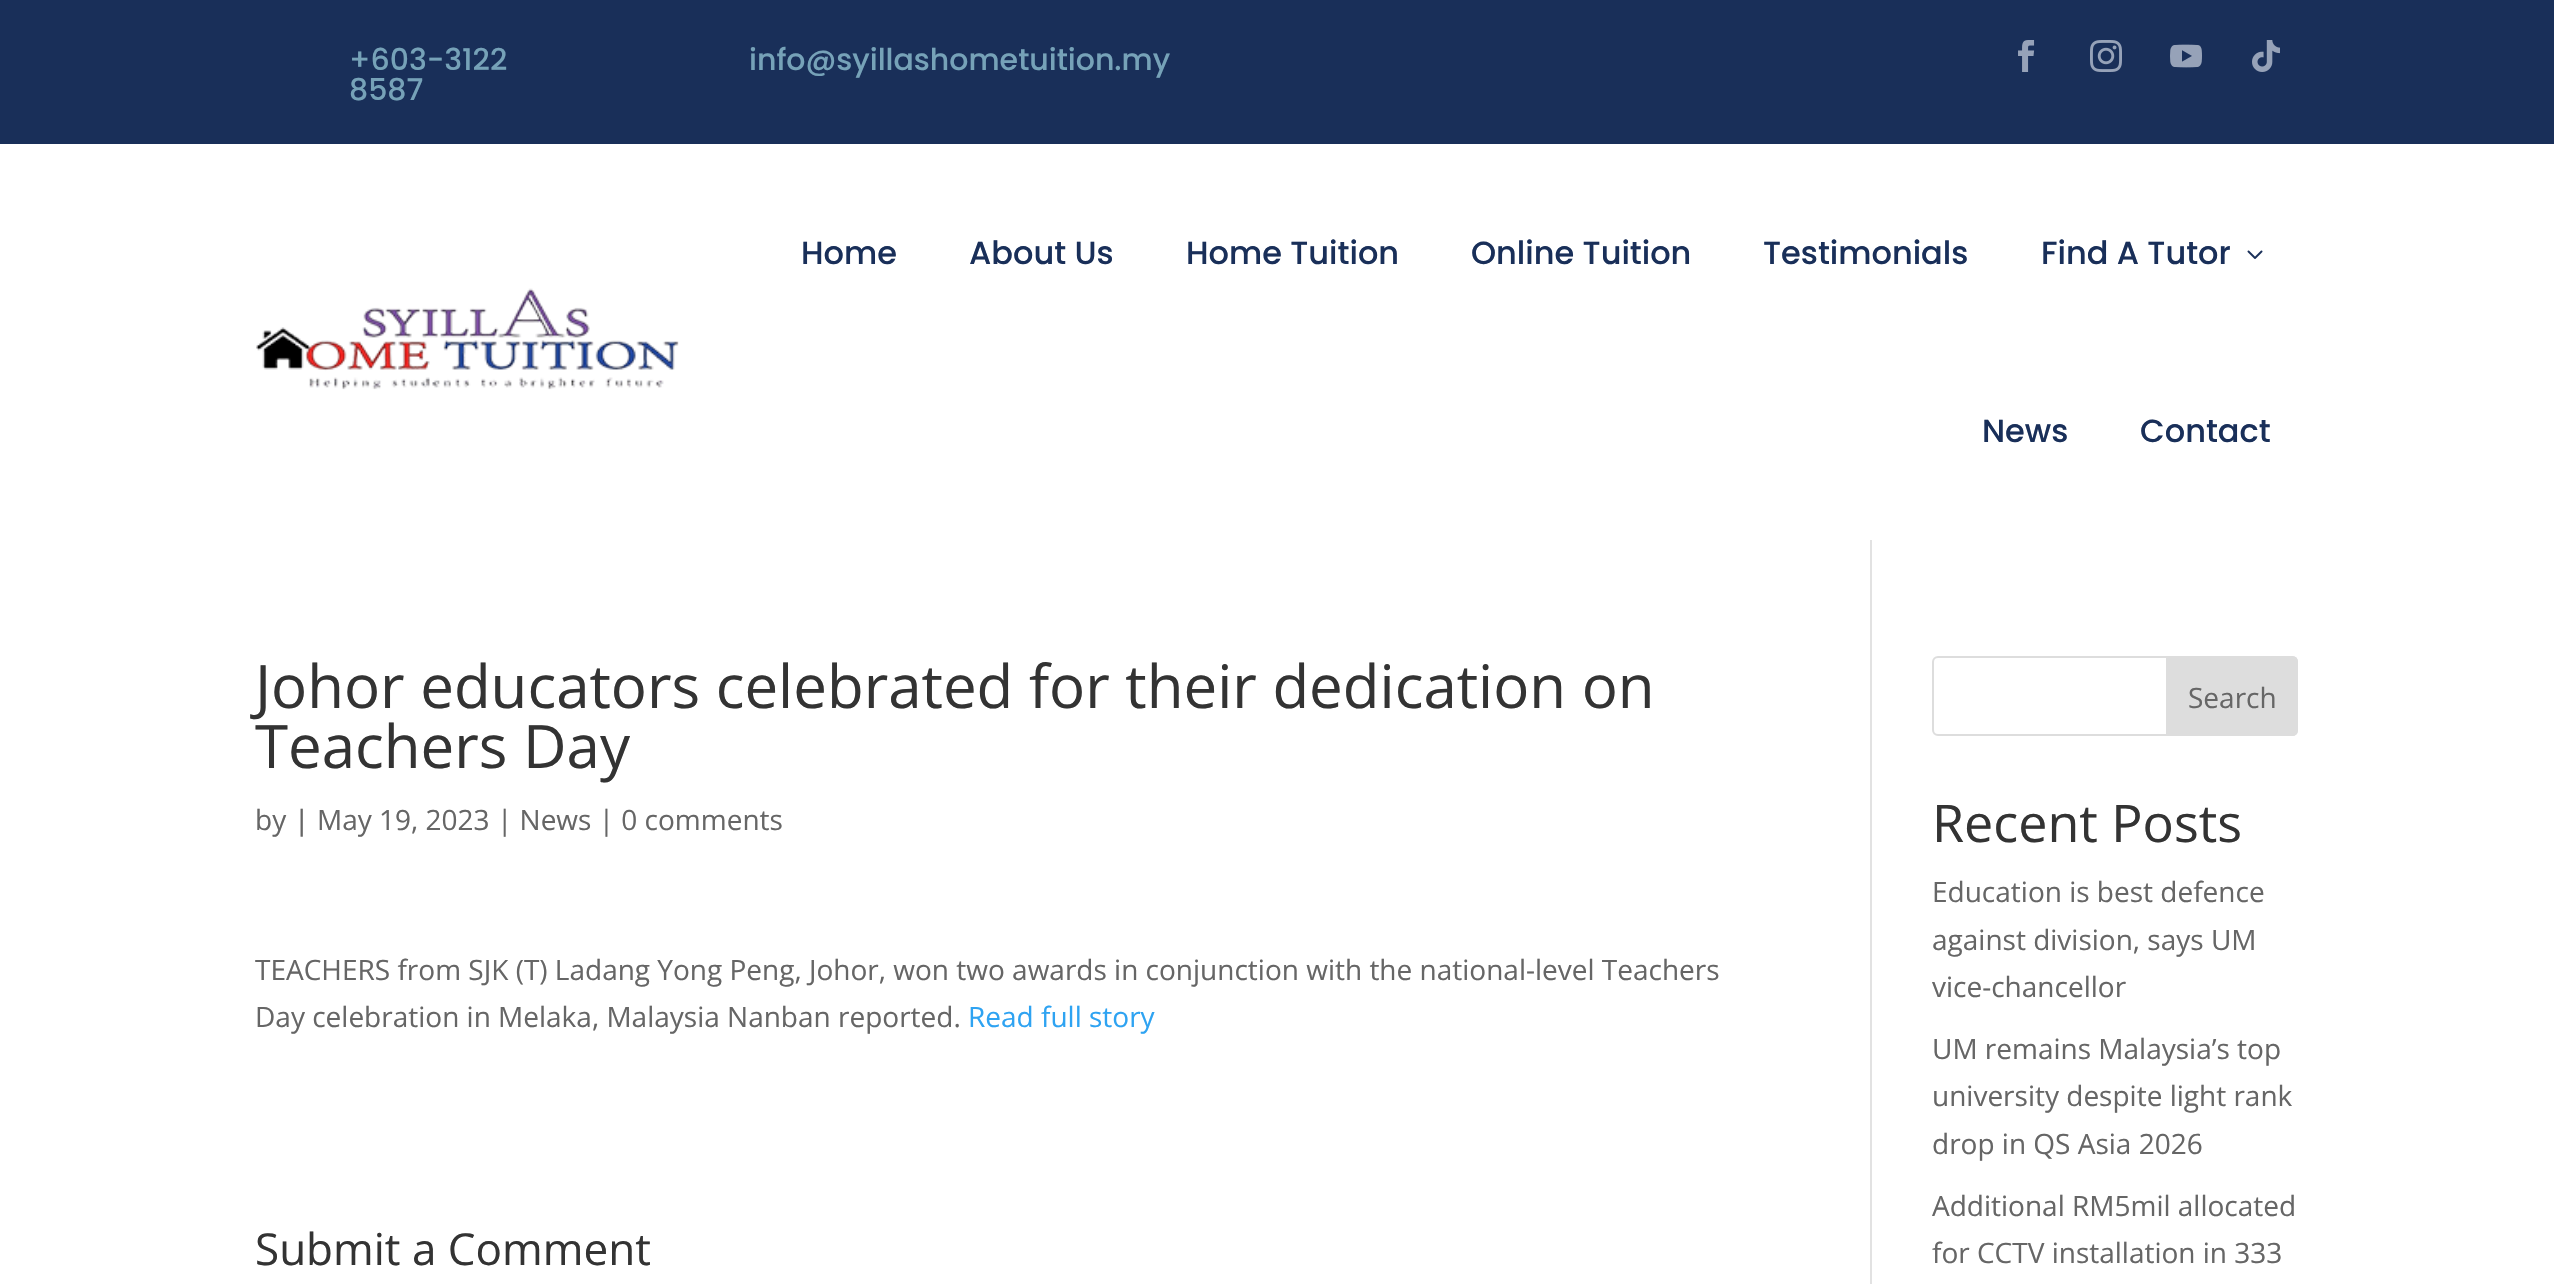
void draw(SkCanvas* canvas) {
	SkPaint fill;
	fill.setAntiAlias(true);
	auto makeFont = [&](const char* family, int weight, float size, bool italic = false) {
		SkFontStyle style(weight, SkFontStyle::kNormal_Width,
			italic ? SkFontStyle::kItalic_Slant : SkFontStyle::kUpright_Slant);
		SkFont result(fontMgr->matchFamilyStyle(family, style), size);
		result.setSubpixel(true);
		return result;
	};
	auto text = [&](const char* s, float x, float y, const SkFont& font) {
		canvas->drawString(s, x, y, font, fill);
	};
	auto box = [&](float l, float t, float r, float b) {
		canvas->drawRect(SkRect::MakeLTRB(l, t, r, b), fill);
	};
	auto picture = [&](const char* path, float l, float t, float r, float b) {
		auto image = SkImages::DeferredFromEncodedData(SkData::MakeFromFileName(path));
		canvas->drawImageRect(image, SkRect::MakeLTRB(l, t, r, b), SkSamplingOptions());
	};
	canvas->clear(0xFFFFFFFF);
	fill.setColor(0xFF192F59);
	box(0, 0, 2554, 144);
	picture("image0.png", 2018, 40, 2035, 72);
	picture("image1.png", 2090, 40, 2122, 72);
	picture("image2.png", 2170, 44, 2202, 68);
	picture("image3.png", 2252, 40, 2280, 72);
	picture("image4.png", 256, 288, 679, 390);
	picture("image5.png", 2247, 250, 2263, 259);
	fill.setColor(0xFFE2E2E2);
	box(1870, 540, 1872, 1284);
	fill.setStyle(SkPaint::kStroke_Style);
	fill.setStrokeWidth(2);
	fill.setColor(0xFFDDDDDD);
	canvas->drawRoundRect(SkRect::MakeLTRB(1933, 657, 2297, 735), 5, 5, fill);
	fill.setStyle(SkPaint::kFill_Style);
	canvas->drawPath(SkPathBuilder().moveTo(2167, 657).lineTo(2292, 657).cubicTo(2295, 657, 2297, 659, 2297, 662).lineTo(2297, 730).cubicTo(2297, 733, 2295, 735, 2292, 735).lineTo(2167, 735).close().detach(), fill);
	fill.setStyle(SkPaint::kStroke_Style);
	canvas->drawPath(SkPathBuilder().moveTo(2167, 657).lineTo(2292, 657).cubicTo(2295, 657, 2297, 659, 2297, 662).lineTo(2297, 730).cubicTo(2297, 733, 2295, 735, 2292, 735).lineTo(2167, 735).close().detach(), fill);
	auto font1 = makeFont("Poppins", 500, 30);
	fill.setStyle(SkPaint::kFill_Style);
	fill.setColor(0xFF76A2B8);
	text("+603-3122", 349, 70, font1);
	text("8587", 349, 100, font1);
	text("info@syillashometuition.my", 749, 70, font1);
	auto font2 = makeFont("Poppins", 500, 32);
	fill.setColor(0xFF192F59);
	text("Home", 801, 264, font2);
	text("About Us", 969, 264, font2);
	text("Home Tuition", 1186, 264, font2);
	text("Online Tuition", 1471, 264, font2);
	text("Testimonials", 1763, 264, font2);
	text("Find A Tutor", 2041, 264, font2);
	text("News", 1982, 442, font2);
	text("Contact", 2140, 442, font2);
	auto font3 = makeFont("Open Sans", 400, 60);
	fill.setColor(0xFF333333);
	text("Johor educators celebrated for their dedication on", 255, 708, font3);
	text("Teachers Day", 255, 768, font3);
	auto font4 = makeFont("Open Sans", 400, 28);
	fill.setColor(0xFF666666);
	text("by", 255, 830, font4);
	auto font5 = makeFont("Open Sans", 500, 28);
	text("|", 294, 830, font5);
	text("May 19, 2023 | News | 0 comments", 317, 830, font4);
	text("TEACHERS from SJK (T) Ladang Yong Peng, Johor, won two awards in conjunction with the national-level Teachers", 255, 980, font4);
	text("Day celebration in Melaka, Malaysia Nanban reported.", 255, 1027, font4);
	fill.setColor(0xFF2EA3F2);
	text("Read full story", 968, 1027, font4);
	auto font6 = makeFont("Open Sans", 400, 44);
	fill.setColor(0xFF333333);
	text("Submit a Comment", 255, 1265, font6);
	fill.setColor(0xFF666666);
	text("Search", 2188, 708, font4);
	auto font7 = makeFont("Open Sans", 400, 52);
	fill.setColor(0xFF333333);
	text("Recent Posts", 1932, 842, font7);
	fill.setColor(0xFF666666);
	text("Education is best defence", 1932, 902, font4);
	text("against division, says UM", 1932, 950, font4);
	text("vice-chancellor", 1932, 997, font4);
	text("UM remains Malaysia’s top", 1932, 1059, font4);
	text("university despite light rank", 1932, 1106, font4);
	text("drop in QS Asia 2026", 1932, 1154, font4);
	text("Additional RM5mil allocated", 1932, 1216, font4);
	text("for CCTV installation in 333", 1932, 1263, font4);
}
